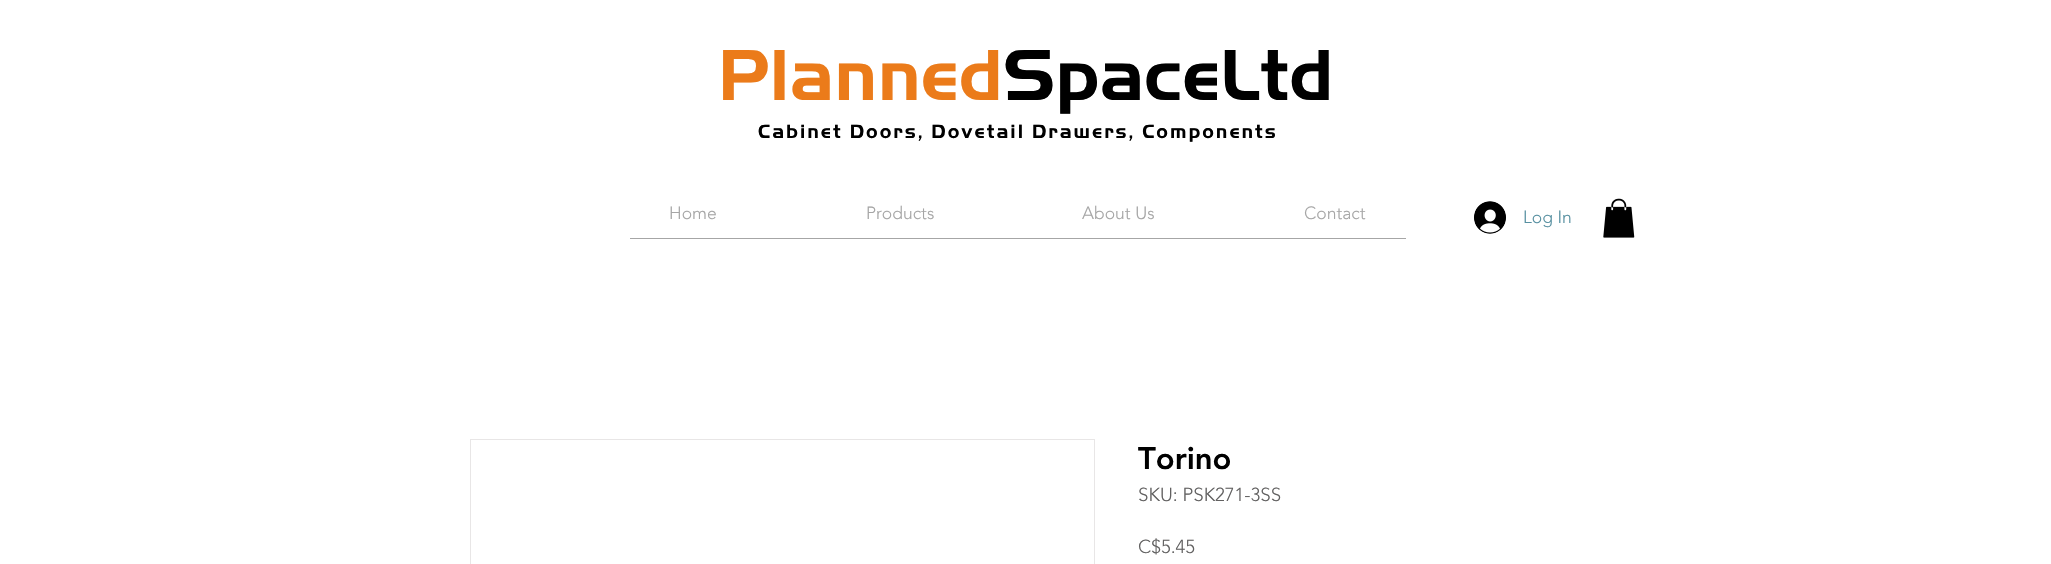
void draw(SkCanvas* canvas) {
	SkPaint fill;
	fill.setAntiAlias(true);
	auto makeFont = [&](const char* family, int weight, float size, bool italic = false) {
		SkFontStyle style(weight, SkFontStyle::kNormal_Width,
			italic ? SkFontStyle::kItalic_Slant : SkFontStyle::kUpright_Slant);
		SkFont result(fontMgr->matchFamilyStyle(family, style), size);
		result.setSubpixel(true);
		return result;
	};
	auto text = [&](const char* s, float x, float y, const SkFont& font) {
		canvas->drawString(s, x, y, font, fill);
	};
	auto spacedText = [&](const char* s, float x, float y, const SkFont& font, const SkPaint& ink, float letter, float word) {
		std::vector<SkGlyphID> glyphs(font.countText(s, strlen(s), SkTextEncoding::kUTF8));
		std::vector<float> xs(glyphs.size());
		font.textToGlyphs(s, strlen(s), SkTextEncoding::kUTF8, glyphs);
		font.getXPos(glyphs, xs, x);
		float extra = 0;
		for (size_t i = 0; i < glyphs.size(); i++) {
			xs[i] += extra;
			extra += letter + word * (glyphs[i] == font.unicharToGlyph(' '));
		}
		canvas->drawTextBlob(SkTextBlob::MakeFromPosHGlyphs(glyphs, xs, y, font), 0, 0, ink);
	};
	auto box = [&](float l, float t, float r, float b) {
		canvas->drawRect(SkRect::MakeLTRB(l, t, r, b), fill);
	};
	auto picture = [&](const char* path, float l, float t, float r, float b) {
		auto image = SkImages::DeferredFromEncodedData(SkData::MakeFromFileName(path));
		canvas->drawImageRect(image, SkRect::MakeLTRB(l, t, r, b), SkSamplingOptions());
	};
	canvas->clear(0xFFFFFFFF);
	picture("image0.png", 1474, 201, 1506, 234);
	picture("image1.png", 1603, 198, 1635, 238);
	fill.setColor(0xFFA6A6A6);
	box(630, 238, 1406, 239);
	fill.setStyle(SkPaint::kStroke_Style);
	fill.setStrokeWidth(1);
	fill.setColor(0xFFE8E6E6);
	canvas->drawRect(SkRect::MakeLTRB(470.5f, 439.5f, 1094.5f, 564.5f), fill);
	auto font1 = makeFont("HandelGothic", 400, 75);
	fill.setStyle(SkPaint::kFill_Style);
	fill.setColor(0xFFEB7B1A);
	text("Planned", 718, 100, font1);
	fill.setColor(0xFF000000);
	text("SpaceLtd", 1003, 100, font1);
	auto font2 = makeFont("HandelGothic", 400, 20);
	spacedText("Cabinet Doors, Dovetail Drawers, Components", 758, 138, font2, fill, 2, 0);
	auto font3 = makeFont("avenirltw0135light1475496", 300, 17.5f);
	fill.setColor(0xFFA6A6A6);
	text("Home", 669, 219, font3);
	text("Products", 866, 219, font3);
	text("About Us", 1082, 219, font3);
	text("Contact", 1304, 219, font3);
	fill.setColor(0xFF5790A1);
	text("Log In", 1523, 223, font3);
	auto font4 = makeFont("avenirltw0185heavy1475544", 900, 31);
	fill.setColor(0xFF000000);
	text("Torino", 1138, 469, font4);
	auto font5 = makeFont("avenirltw0135light1475496", 300, 18.75f);
	fill.setColor(0xFF616060);
	text("SKU: PSK271-3SS", 1138, 501, font5);
	text("C$5.45", 1138, 553, font5);
}
